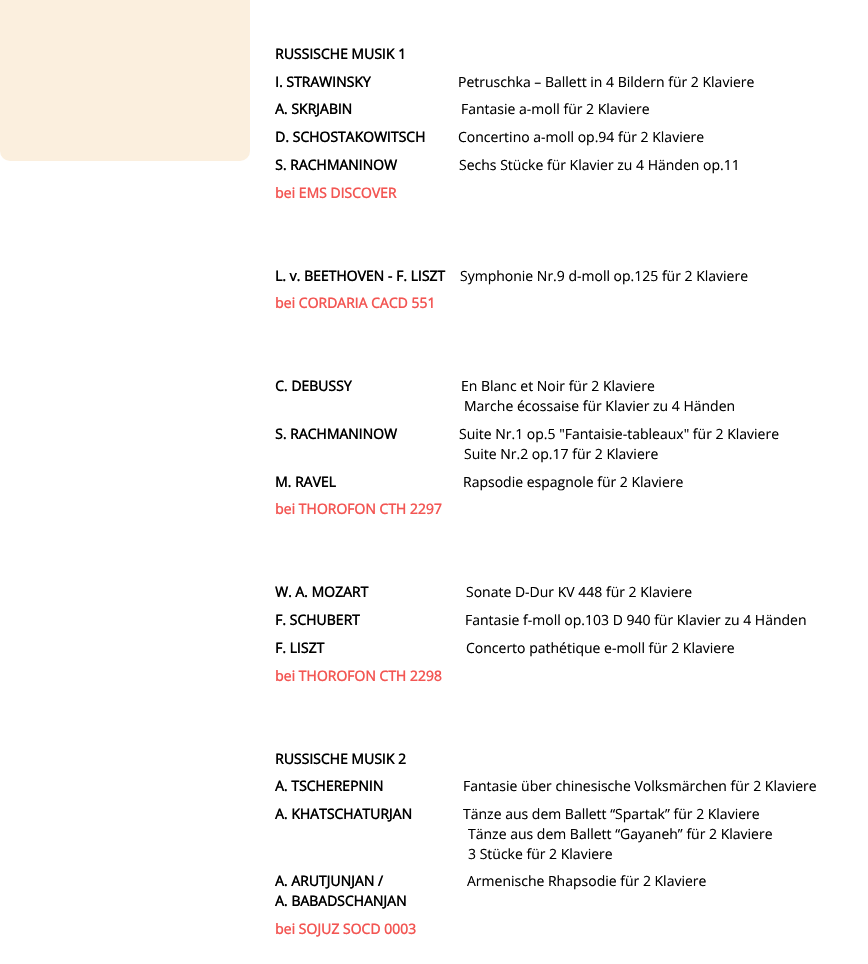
void draw(SkCanvas* canvas) {
	SkPaint fill;
	fill.setAntiAlias(true);
	auto makeFont = [&](const char* family, int weight, float size, bool italic = false) {
		SkFontStyle style(weight, SkFontStyle::kNormal_Width,
			italic ? SkFontStyle::kItalic_Slant : SkFontStyle::kUpright_Slant);
		SkFont result(fontMgr->matchFamilyStyle(family, style), size);
		result.setSubpixel(true);
		return result;
	};
	auto text = [&](const char* s, float x, float y, const SkFont& font) {
		canvas->drawString(s, x, y, font, fill);
	};
	auto roundBox = [&](float l, float t, float r, float b, float radius) {
		canvas->drawRoundRect(SkRect::MakeLTRB(l, t, r, b), radius, radius, fill);
	};
	canvas->clear(0xFFFFFFFF);
	fill.setColor(0xFFFBEFDE);
	roundBox(0, -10, 250, 161, 10);
	auto font1 = makeFont("Open Sans", 700, 14);
	fill.setColor(0xFF000000);
	text("RUSSISCHE MUSIK 1", 275, 59, font1);
	text("I. STRAWINSKY", 275, 87, font1);
	auto font2 = makeFont("Open Sans", 400, 14);
	text("Petruschka – Ballett in 4 Bildern für 2 Klaviere", 458, 87, font2);
	text("A. SKRJABIN", 275, 114, font1);
	text("Fantasie a-moll für 2 Klaviere", 461, 114, font2);
	text("D. SCHOSTAKOWITSCH", 275, 142, font1);
	text("Concertino a-moll op.94 für 2 Klaviere", 458, 142, font2);
	text("S. RACHMANINOW", 275, 170, font1);
	text("Sechs Stücke für Klavier zu 4 Händen op.11", 459, 170, font2);
	fill.setColor(0xFFF35653);
	text("bei EMS DISCOVER", 275, 198, font1);
	fill.setColor(0xFF000000);
	text("L. v. BEETHOVEN - F. LISZT", 275, 281, font1);
	text("Symphonie Nr.9 d-moll op.125 für 2 Klaviere", 460, 281, font2);
	fill.setColor(0xFFF35653);
	text("bei CORDARIA CACD 551", 275, 308, font1);
	fill.setColor(0xFF000000);
	text("C. DEBUSSY", 275, 391, font1);
	text("En Blanc et Noir für 2 Klaviere", 461, 391, font2);
	text("Marche écossaise für Klavier zu 4 Händen", 464, 411, font2);
	text("S. RACHMANINOW", 275, 439, font1);
	text("Suite Nr.1 op.5 \"Fantaisie-tableaux\" für 2 Klaviere", 459, 439, font2);
	text("Suite Nr.2 op.17 für 2 Klaviere", 464, 459, font2);
	text("M. RAVEL", 275, 487, font1);
	text("Rapsodie espagnole für 2 Klaviere", 463, 487, font2);
	fill.setColor(0xFFF35653);
	text("bei THOROFON CTH 2297", 275, 514, font1);
	fill.setColor(0xFF000000);
	text("W. A. MOZART", 275, 597, font1);
	text("Sonate D-Dur KV 448 für 2 Klaviere", 466, 597, font2);
	text("F. SCHUBERT", 275, 625, font1);
	text("Fantasie f-moll op.103 D 940 für Klavier zu 4 Händen", 465, 625, font2);
	text("F. LISZT", 275, 653, font1);
	text("Concerto pathétique e-moll für 2 Klaviere", 466, 653, font2);
	fill.setColor(0xFFF35653);
	text("bei THOROFON CTH 2298", 275, 681, font1);
	fill.setColor(0xFF000000);
	text("RUSSISCHE MUSIK 2", 275, 764, font1);
	text("A. TSCHEREPNIN", 275, 791, font1);
	text("Fantasie über chinesische Volksmärchen für 2 Klaviere", 463, 791, font2);
	text("A. KHATSCHATURJAN", 275, 819, font1);
	text("Tänze aus dem Ballett “Spartak” für 2 Klaviere", 463, 819, font2);
	text("Tänze aus dem Ballett “Gayaneh” für 2 Klaviere", 468, 839, font2);
	text("3 Stücke für 2 Klaviere", 468, 859, font2);
	text("A. ARUTJUNJAN /", 275, 886, font1);
	text("Armenische Rhapsodie für 2 Klaviere", 467, 886, font2);
	text("A. BABADSCHANJAN", 275, 906, font1);
	fill.setColor(0xFFF35653);
	text("bei SOJUZ SOCD 0003", 275, 934, font1);
}
